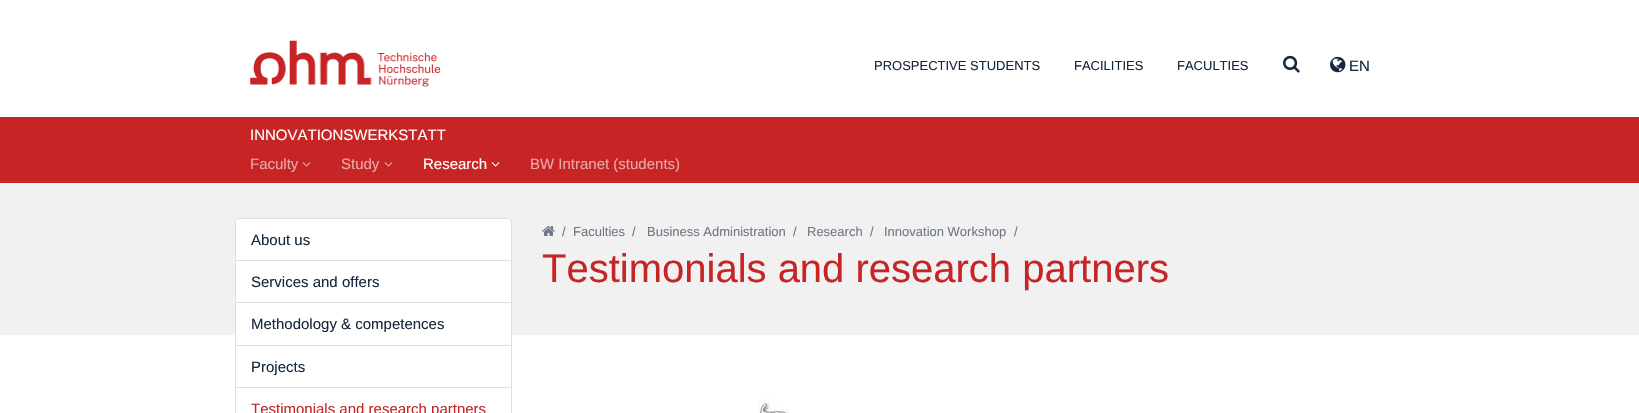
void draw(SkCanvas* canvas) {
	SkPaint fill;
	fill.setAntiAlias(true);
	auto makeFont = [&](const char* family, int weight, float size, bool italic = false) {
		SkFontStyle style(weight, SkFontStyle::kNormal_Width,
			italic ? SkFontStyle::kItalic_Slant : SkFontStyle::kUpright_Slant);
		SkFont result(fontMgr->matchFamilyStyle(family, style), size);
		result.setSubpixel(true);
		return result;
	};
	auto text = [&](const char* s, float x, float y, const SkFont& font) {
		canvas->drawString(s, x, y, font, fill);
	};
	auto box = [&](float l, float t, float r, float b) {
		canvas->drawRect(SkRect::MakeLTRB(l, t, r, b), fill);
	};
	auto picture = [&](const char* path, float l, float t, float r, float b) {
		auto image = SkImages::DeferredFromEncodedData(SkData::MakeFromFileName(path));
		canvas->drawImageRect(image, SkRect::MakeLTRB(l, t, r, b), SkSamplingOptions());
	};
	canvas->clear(0xFFFFFFFF);
	picture("image0.png", 250, 40, 441, 87);
	picture("image1.png", 1283, 55, 1300, 73);
	picture("image2.png", 1330, 56, 1346, 73);
	fill.setColor(0xFFC72426);
	box(0, 117, 1639, 183);
	picture("image3.png", 302, 162, 311, 167);
	picture("image3.png", 384, 162, 393, 167);
	picture("image4.png", 491, 162, 500, 167);
	fill.setColor(0xFFF1F1F1);
	box(0, 183, 1639, 335);
	fill.setColor(0xFFFFFFFF);
	canvas->drawRoundRect(SkRect::MakeLTRB(235.5f, 218.5f, 511.5f, 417.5f), 3.5f, 3.5f, fill);
	fill.setStyle(SkPaint::kStroke_Style);
	fill.setStrokeWidth(1);
	fill.setColor(0xFFD9E0E9);
	canvas->drawRoundRect(SkRect::MakeLTRB(235.5f, 218.5f, 511.5f, 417.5f), 3.5f, 3.5f, fill);
	fill.setStyle(SkPaint::kFill_Style);
	box(236, 260, 511, 261);
	box(236, 302, 511, 303);
	box(236, 345, 511, 346);
	box(236, 387, 511, 388);
	picture("image5.png", 542, 226, 555, 236);
	picture("image6.png", 758, 399, 790, 413);
	auto font1 = makeFont("Liberation Sans", 400, 13);
	fill.setColor(0xFF16283D);
	text("PROSPECTIVE STUDENTS", 874, 70, font1);
	text("FACILITIES", 1074, 70, font1);
	text("FACULTIES", 1177, 70, font1);
	auto font2 = makeFont("Liberation Sans", 400, 15);
	text("EN", 1349, 71, font2);
	fill.setColor(0xFFFFFFFF);
	text("INNOVATIONSWERKSTATT", 250, 140, font2);
	fill.setColor(0xFFE9A7A8);
	text("Faculty", 250, 169, font2);
	text("Study", 341, 169, font2);
	fill.setColor(0xFFFFFFFF);
	text("Research", 423, 169, font2);
	fill.setColor(0xFFE9A7A8);
	text("BW Intranet (students)", 530, 169, font2);
	fill.setColor(0xFF16283D);
	text("About us", 251, 245, font2);
	text("Services and offers", 251, 287, font2);
	text("Methodology & competences", 251, 329, font2);
	text("Projects", 251, 372, font2);
	fill.setColor(0xFFC72426);
	text("Testimonials and research partners", 251, 414, font2);
	fill.setColor(0xFF6E7885);
	text("/", 562, 236, font1);
	text("Faculties", 573, 236, font1);
	text("/", 632, 236, font1);
	text("Business Administration", 647, 236, font1);
	text("/", 793, 236, font1);
	text("Research", 807, 236, font1);
	text("/", 870, 236, font1);
	text("Innovation Workshop", 884, 236, font1);
	text("/", 1014, 236, font1);
	auto font3 = makeFont("Liberation Sans", 400, 40);
	fill.setColor(0xFFC72426);
	text("Testimonials and research partners", 542, 282, font3);
}
